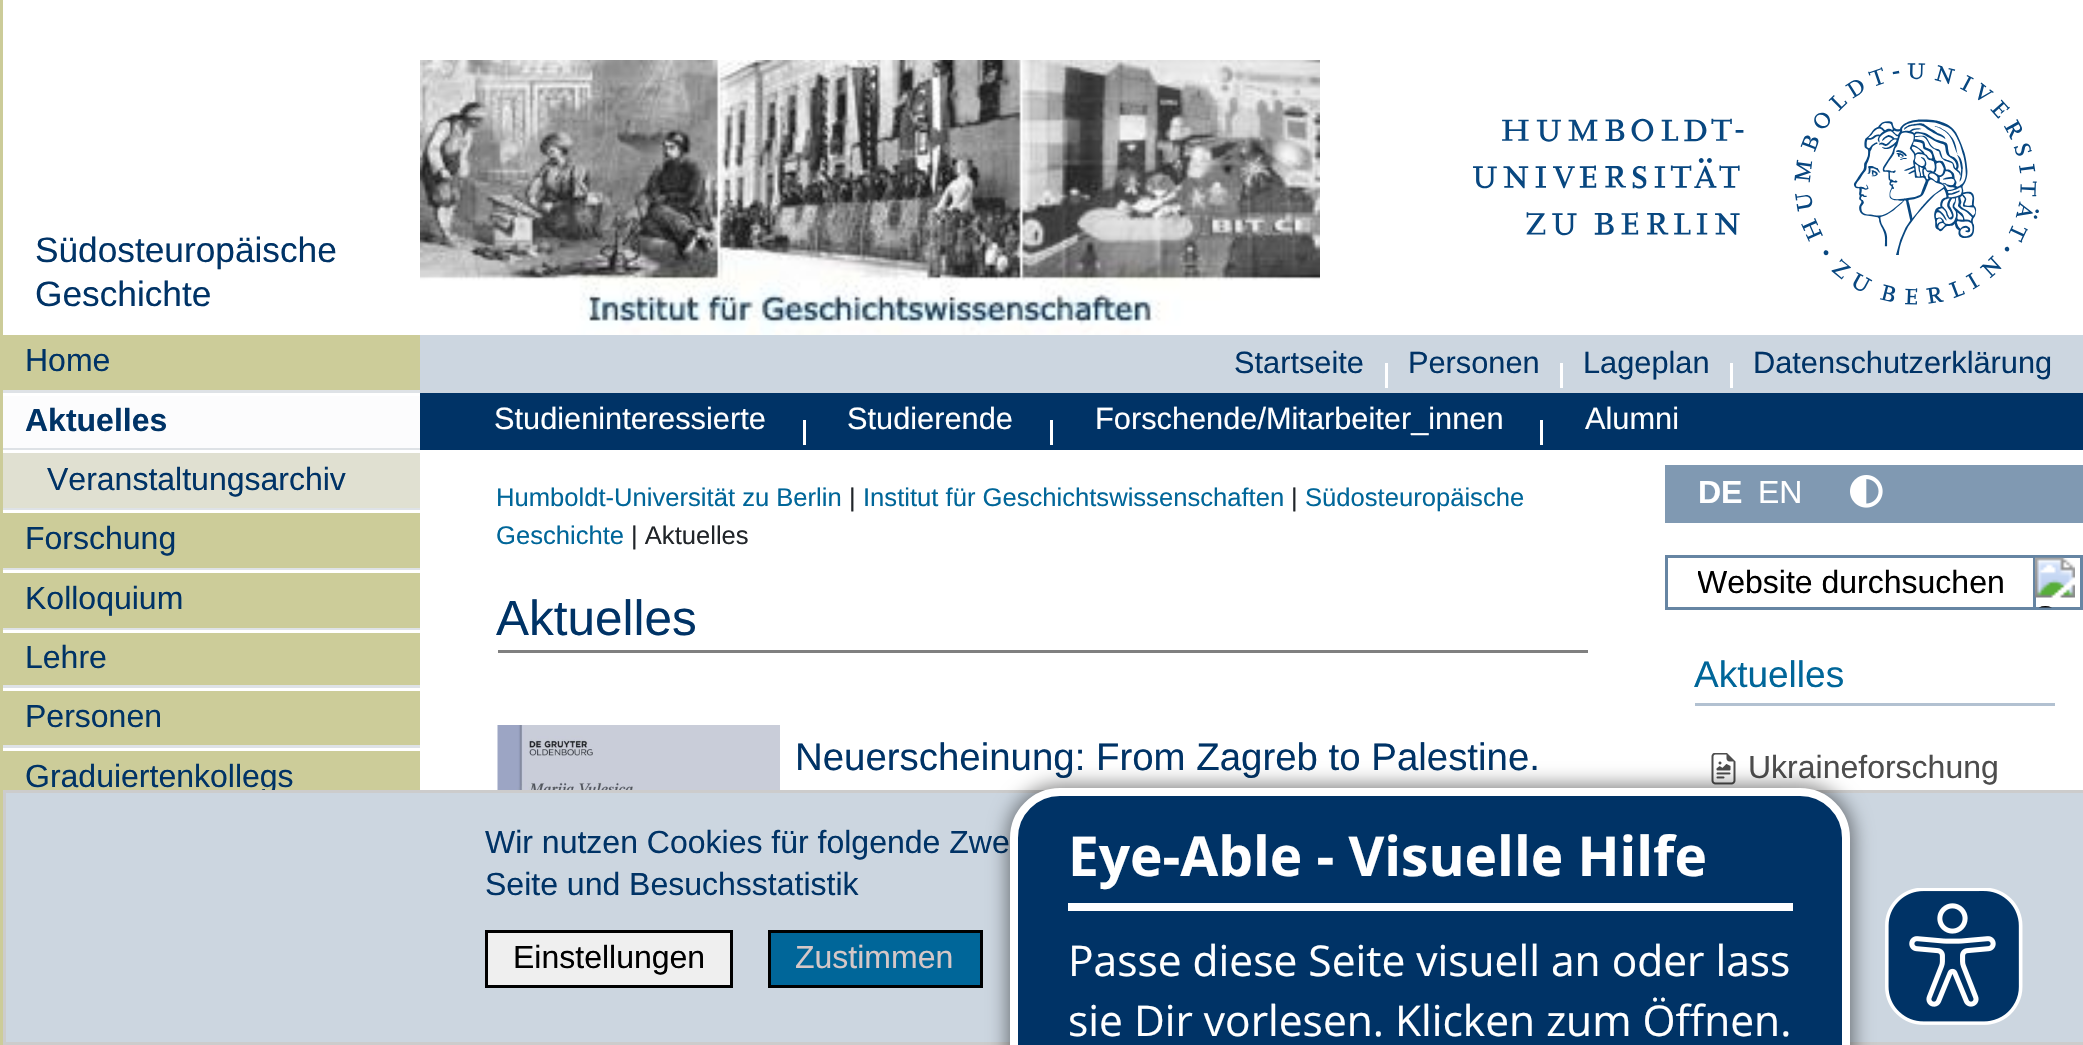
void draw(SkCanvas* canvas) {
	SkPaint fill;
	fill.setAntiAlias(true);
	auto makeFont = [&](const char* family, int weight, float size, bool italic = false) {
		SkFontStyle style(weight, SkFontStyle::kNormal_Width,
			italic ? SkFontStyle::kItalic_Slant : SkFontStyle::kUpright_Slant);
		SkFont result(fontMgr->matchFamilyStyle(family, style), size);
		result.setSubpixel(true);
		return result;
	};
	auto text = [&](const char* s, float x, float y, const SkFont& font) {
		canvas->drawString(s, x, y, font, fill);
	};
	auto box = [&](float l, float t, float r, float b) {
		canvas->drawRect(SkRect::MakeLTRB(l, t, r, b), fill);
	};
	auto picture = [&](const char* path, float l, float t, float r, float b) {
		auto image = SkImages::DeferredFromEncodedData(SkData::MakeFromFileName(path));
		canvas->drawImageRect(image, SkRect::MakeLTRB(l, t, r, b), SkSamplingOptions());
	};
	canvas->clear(0xFFFFFFFF);
	picture("image0.png", 420, 60, 1320, 335);
	picture("image1.png", 1473, 63, 2039, 305);
	fill.setColor(0xFFCCCC99);
	box(0, 0, 3, 1045);
	box(3, 335, 420, 390);
	fill.setColor(0xFFDEE2E6);
	box(3, 390, 420, 393);
	fill.setColor(0xFFFCFCFD);
	box(3, 396, 420, 448);
	fill.setColor(0xFFE0E0D1);
	box(3, 453, 420, 508);
	fill.setColor(0xFFDEE2E6);
	box(3, 448, 420, 450);
	fill.setColor(0xFFCCCC99);
	box(3, 513, 420, 568);
	fill.setColor(0xFFDEE2E6);
	box(3, 508, 420, 510);
	fill.setColor(0xFFCCCC99);
	box(3, 573, 420, 628);
	fill.setColor(0xFFDEE2E6);
	box(3, 568, 420, 570);
	fill.setColor(0xFFCCCC99);
	box(3, 633, 420, 685);
	fill.setColor(0xFFDEE2E6);
	box(3, 628, 420, 630);
	fill.setColor(0xFFCCCC99);
	box(3, 691, 420, 745);
	fill.setColor(0xFFDEE2E6);
	box(3, 685, 420, 688);
	fill.setColor(0xFFCCCC99);
	box(3, 751, 420, 790);
	fill.setColor(0xFFDEE2E6);
	box(3, 745, 420, 748);
	fill.setColor(0xFFCCD6E0);
	box(420, 335, 2083, 393);
	fill.setColor(0xFFFFFFFF);
	box(1385, 363, 1388, 388);
	box(1560, 363, 1563, 388);
	box(1730, 363, 1733, 388);
	fill.setColor(0xFF003366);
	box(420, 393, 2083, 450);
	fill.setColor(0xFFFFFFFF);
	box(803, 420, 806, 445);
	box(1050, 420, 1053, 445);
	box(1540, 420, 1543, 445);
	fill.setColor(0xFF808080);
	box(498, 650, 1588, 653);
	picture("image2.png", 497, 725, 780, 790);
	fill.setColor(0xFF8099B2);
	box(1665, 465, 2083, 523);
	picture("image3.png", 1850, 475, 1883, 508);
	fill.setStyle(SkPaint::kStroke_Style);
	fill.setStrokeWidth(3);
	fill.setColor(0xFF6685A3);
	canvas->drawRect(SkRect::MakeLTRB(1666.5f, 556.5f, 2081.5f, 608.5f), fill);
	canvas->drawRect(SkRect::MakeLTRB(2034.5f, 556.5f, 2081.5f, 608.5f), fill);
	picture("image4.png", 2035, 557, 2075, 608);
	fill.setStyle(SkPaint::kFill_Style);
	fill.setColor(0xFFB2C1D1);
	box(1695, 703, 2055, 706);
	picture("image5.png", 1711, 753, 1736, 785);
	auto font1 = makeFont("Liberation Sans", 400, 35.25f);
	fill.setColor(0xFF003366);
	text("Südosteuropäische", 35, 262, font1);
	text("Geschichte", 35, 306, font1);
	auto font2 = makeFont("Liberation Sans", 400, 32);
	text("Home", 25, 371, font2);
	auto font3 = makeFont("Liberation Sans", 700, 32);
	text("Aktuelles", 25, 431, font3);
	text("Veranstaltungsarchiv", 47, 490, font2);
	text("Forschung", 25, 549, font2);
	text("Kolloquium", 25, 609, font2);
	text("Lehre", 25, 668, font2);
	text("Personen", 25, 727, font2);
	text("Graduiertenkollegs", 25, 787, font2);
	auto font4 = makeFont("Liberation Sans", 400, 30.75f);
	text("Startseite", 1234, 373, font4);
	text("Personen", 1408, 373, font4);
	text("Lageplan", 1583, 373, font4);
	text("Datenschutzerklärung", 1753, 373, font4);
	fill.setColor(0xFFFFFFFF);
	text("Studieninteressierte", 494, 429, font4);
	text("Studierende", 847, 429, font4);
	text("Forschende/Mitarbeiter_innen", 1095, 429, font4);
	text("Alumni", 1585, 429, font4);
	auto font5 = makeFont("Liberation Sans", 400, 25.6f);
	fill.setColor(0xFF006699);
	text("Humboldt-Universität zu Berlin", 496, 506, font5);
	fill.setColor(0xFF212529);
	text("|", 849, 506, font5);
	fill.setColor(0xFF006699);
	text("Institut für Geschichtswissenschaften", 863, 506, font5);
	fill.setColor(0xFF212529);
	text("|", 1291, 506, font5);
	fill.setColor(0xFF006699);
	text("Südosteuropäische", 1305, 506, font5);
	text("Geschichte", 496, 544, font5);
	fill.setColor(0xFF212529);
	text("| Aktuelles", 631, 544, font5);
	auto font6 = makeFont("Liberation Sans", 400, 49.5f);
	fill.setColor(0xFF003366);
	text("Aktuelles", 496, 635, font6);
	auto font7 = makeFont("Liberation Sans", 400, 38.4f);
	text("Neuerscheinung: From Zagreb to Palestine.", 795, 770, font7);
	fill.setColor(0xFFFFFFFF);
	text("DE", 1698, 503, font3);
	text("EN", 1758, 503, font2);
	canvas->save();
	canvas->clipRect(SkRect::MakeLTRB(1698, 563, 2053, 600));
	fill.setColor(0xFF000000);
	text("Website durchsuchen", 1697, 593, font2);
	canvas->restore();
	auto font8 = makeFont("Liberation Sans", 400, 37);
	fill.setColor(0xFF006699);
	text("Aktuelles", 1694, 687, font8);
	fill.setColor(0xFF4D4D4D);
	text("Ukraineforschung", 1748, 778, font2);
	fill.setColor(0xFFCCD6E0);
	canvas->drawRect(SkRect::MakeLTRB(4.5f, 791.5f, 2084.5f, 1043.5f), fill);
	fill.setStyle(SkPaint::kStroke_Style);
	fill.setColor(0xFFCCCCCC);
	canvas->drawRect(SkRect::MakeLTRB(4.5f, 791.5f, 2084.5f, 1043.5f), fill);
	fill.setStyle(SkPaint::kFill_Style);
	fill.setColor(0xFF003366);
	text("Wir nutzen Cookies für folgende Zwe", 485, 853, font2);
	text("Seite und Besuchsstatistik", 485, 895, font2);
	fill.setColor(0xFFEFEFEF);
	canvas->drawRect(SkRect::MakeLTRB(486.5f, 931.5f, 731.5f, 986.5f), fill);
	fill.setStyle(SkPaint::kStroke_Style);
	fill.setColor(0xFF000000);
	canvas->drawRect(SkRect::MakeLTRB(486.5f, 931.5f, 731.5f, 986.5f), fill);
	fill.setStyle(SkPaint::kFill_Style);
	text("Einstellungen", 513, 968, font2);
	fill.setColor(0xFF006699);
	canvas->drawRect(SkRect::MakeLTRB(769.5f, 931.5f, 981.5f, 986.5f), fill);
	fill.setStyle(SkPaint::kStroke_Style);
	fill.setColor(0xFF000000);
	canvas->drawRect(SkRect::MakeLTRB(769.5f, 931.5f, 981.5f, 986.5f), fill);
	fill.setStyle(SkPaint::kFill_Style);
	fill.setColor(0xFFD5C7C7);
	text("Zustimmen", 795, 968, font2);
	fill.setColor(0x80000000);
	fill.setMaskFilter(SkMaskFilter::MakeBlur(kNormal_SkBlurStyle, 10));
	canvas->drawRoundRect(SkRect::MakeLTRB(1008, 785, 1853, 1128), 53, 53, fill);
	fill.setMaskFilter(nullptr);
	fill.setColor(0xFF003366);
	canvas->drawRoundRect(SkRect::MakeLTRB(1014, 792, 1846, 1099), 46, 46, fill);
	fill.setStyle(SkPaint::kStroke_Style);
	fill.setStrokeWidth(8);
	fill.setColor(0xFFFFFFFF);
	canvas->drawRoundRect(SkRect::MakeLTRB(1014, 792, 1846, 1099), 46, 46, fill);
	fill.setStyle(SkPaint::kFill_Style);
	box(1068, 903, 1793, 911);
	auto font9 = makeFont("Open Sans", 700, 55);
	text("Eye-Able - Visuelle Hilfe", 1068, 876, font9);
	auto font10 = makeFont("Open Sans", 400, 42.5f);
	text("Passe diese Seite visuell an oder lass", 1068, 976, font10);
	text("sie Dir vorlesen. Klicken zum Öffnen.", 1068, 1036, font10);
	picture("image6.png", 1885, 888, 2023, 1025);
}
